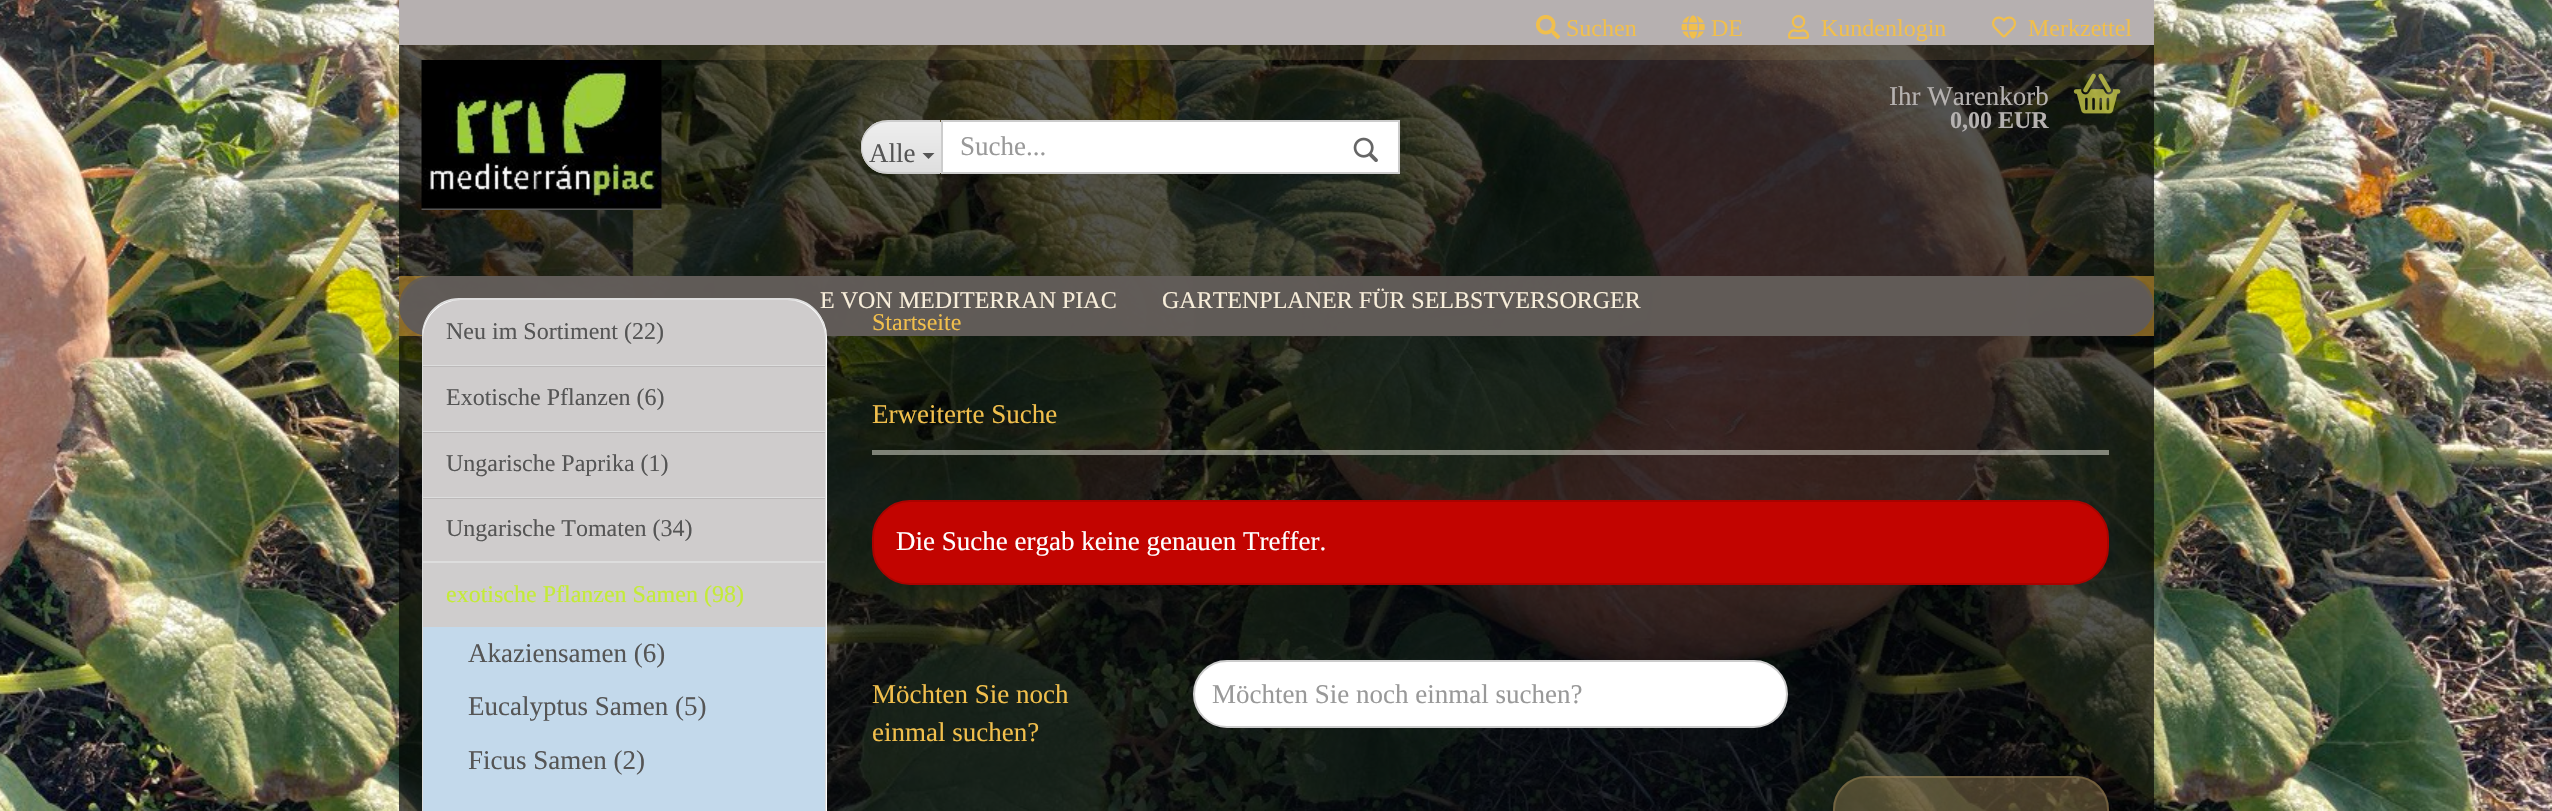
void draw(SkCanvas* canvas) {
	SkPaint fill;
	fill.setAntiAlias(true);
	auto makeFont = [&](const char* family, int weight, float size, bool italic = false) {
		SkFontStyle style(weight, SkFontStyle::kNormal_Width,
			italic ? SkFontStyle::kItalic_Slant : SkFontStyle::kUpright_Slant);
		SkFont result(fontMgr->matchFamilyStyle(family, style), size);
		result.setSubpixel(true);
		return result;
	};
	auto text = [&](const char* s, float x, float y, const SkFont& font) {
		canvas->drawString(s, x, y, font, fill);
	};
	auto box = [&](float l, float t, float r, float b) {
		canvas->drawRect(SkRect::MakeLTRB(l, t, r, b), fill);
	};
	auto roundBox = [&](float l, float t, float r, float b, float radius) {
		canvas->drawRoundRect(SkRect::MakeLTRB(l, t, r, b), radius, radius, fill);
	};
	auto picture = [&](const char* path, float l, float t, float r, float b) {
		auto image = SkImages::DeferredFromEncodedData(SkData::MakeFromFileName(path));
		canvas->drawImageRect(image, SkRect::MakeLTRB(l, t, r, b), SkSamplingOptions());
	};
	canvas->clear(0xFFFFFFFF);
	picture("image0.png", 0, 0, 2552, 811);
	fill.setColor(0xAD000000);
	box(399, 45, 2154, 811);
	fill.setColor(0x369E8555);
	roundBox(399, 0, 2154, 60, 30);
	fill.setColor(0xFFB6B0B0);
	box(399, 0, 2154, 45);
	picture("image1.png", 1536, 15, 1560, 39);
	picture("image2.png", 1681, 15, 1705, 39);
	picture("image3.png", 1788, 15, 1809, 39);
	picture("image4.png", 1992, 16, 2016, 38);
	picture("image5.png", 421, 60, 662, 210);
	picture("image6.png", 2073, 73, 2121, 114);
	fill.setColor(0x709E8555);
	canvas->drawPath(SkPathBuilder().moveTo(888, 120).lineTo(941, 120).lineTo(941, 174).lineTo(888, 174).cubicTo(873, 174, 861, 162, 861, 147).cubicTo(861, 132, 873, 120, 888, 120).close().detach(), fill);
	canvas->save();
	canvas->clipPath(SkPathBuilder().moveTo(888, 120).lineTo(941, 120).lineTo(941, 174).lineTo(888, 174).cubicTo(873, 174, 861, 162, 861, 147).cubicTo(861, 132, 873, 120, 888, 120).close().detach(), true);
	{
		const SkColor colors[] = {0xFFEEEEEE, 0xFFDEDEDE};
		const float stops[] = {0, 1};
		const SkPoint ends[] = {{902, 122}, {902, 173}};
		fill.setShader(SkGradientShader::MakeLinear(ends, colors, stops, 2, SkTileMode::kClamp));
		fill.setAlpha(255);
	}
	box(861, 122, 941, 173);
	canvas->restore();
	fill.setShader(nullptr);
	fill.setColor(0xFFCCCCCC);
	canvas->drawPath(SkPathBuilder(SkPathFillType::kEvenOdd).moveTo(888, 120).lineTo(940, 120).lineTo(940, 174).lineTo(888, 174).cubicTo(873, 174, 861, 162, 861, 147).cubicTo(861, 132, 873, 120, 888, 120).close().moveTo(888, 122).lineTo(940, 122).lineTo(940, 172).lineTo(888, 172).cubicTo(874, 172, 862, 161, 862, 147).cubicTo(862, 133, 874, 122, 888, 122).close().detach(), fill);
	fill.setColor(0xFF555555);
	canvas->drawPath(SkPathBuilder().moveTo(922.5f, 153).lineTo(934.5f, 153).lineTo(928.5f, 159).close().detach(), fill);
	fill.setColor(0xFFFFFFFF);
	canvas->drawRect(SkRect::MakeLTRB(942, 121, 1399, 173), fill);
	fill.setStyle(SkPaint::kStroke_Style);
	fill.setStrokeWidth(2);
	fill.setColor(0xFFCCCCCC);
	canvas->drawRect(SkRect::MakeLTRB(942, 121, 1399, 173), fill);
	picture("image7.png", 1353, 137, 1378, 162);
	fill.setStyle(SkPaint::kFill_Style);
	fill.setColor(0x9EC59330);
	box(399, 276, 2154, 336);
	fill.setColor(0xC25D5959);
	roundBox(399, 276, 2154, 336, 30);
	canvas->save();
	canvas->clipPath(SkPathBuilder().moveTo(429, 276).lineTo(2124, 276).cubicTo(2140.5f, 276, 2154, 289.5f, 2154, 306).cubicTo(2154, 322.5f, 2140.5f, 336, 2124, 336).lineTo(429, 336).cubicTo(412.5f, 336, 399, 322.5f, 399, 306).cubicTo(399, 289.5f, 412.5f, 276, 429, 276).close().detach(), true);
	canvas->drawPath(SkPathBuilder().moveTo(437, 276).lineTo(2116, 276).cubicTo(2137, 276, 2154, 293, 2154, 314).lineTo(2154, 306).cubicTo(2154, 322.5f, 2140.5f, 336, 2124, 336).lineTo(429, 336).cubicTo(412.5f, 336, 399, 322.5f, 399, 306).lineTo(399, 314).cubicTo(399, 293, 416, 276, 437, 276).close().detach(), fill);
	canvas->restore();
	fill.setColor(0x80E8E7DB);
	box(872, 450, 2109, 455);
	fill.setColor(0xFFC20400);
	canvas->drawRoundRect(SkRect::MakeLTRB(873, 501, 2108, 584), 37, 37, fill);
	fill.setStyle(SkPaint::kStroke_Style);
	fill.setColor(0xFFA90300);
	canvas->drawRoundRect(SkRect::MakeLTRB(873, 501, 2108, 584), 37, 37, fill);
	fill.setStyle(SkPaint::kFill_Style);
	fill.setColor(0xFFFFFFFF);
	canvas->drawRoundRect(SkRect::MakeLTRB(1194, 661, 1787, 727), 33, 33, fill);
	fill.setStyle(SkPaint::kStroke_Style);
	fill.setColor(0xFFCCCCCC);
	canvas->drawRoundRect(SkRect::MakeLTRB(1194, 661, 1787, 727), 33, 33, fill);
	fill.setStyle(SkPaint::kFill_Style);
	fill.setColor(0x709E8555);
	roundBox(1833, 776, 2109, 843, 33.5f);
	fill.setStyle(SkPaint::kStroke_Style);
	fill.setColor(0x6E9E8555);
	canvas->drawRoundRect(SkRect::MakeLTRB(1834, 777, 2108, 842), 32.5f, 32.5f, fill);
	auto font1 = makeFont("Liberation Serif", 400, 24);
	fill.setStyle(SkPaint::kFill_Style);
	fill.setColor(0xFFF1BF4C);
	text("Suchen", 1566, 36, font1);
	text("DE", 1711, 36, font1);
	text("Kundenlogin", 1821, 36, font1);
	text("Merkzettel", 2028, 36, font1);
	auto font2 = makeFont("Liberation Serif", 400, 27);
	fill.setColor(0xFFB6B2B1);
	text("Ihr Warenkorb", 1889, 105, font2);
	auto font3 = makeFont("Liberation Serif", 700, 24);
	text("0,00 EUR", 1950, 128, font3);
	fill.setColor(0xFF555555);
	text("Alle", 869, 162, font2);
	fill.setColor(0xFF999999);
	text("Suche...", 960, 155, font2);
	fill.setColor(0xFFF8EEDA);
	text("E VON MEDITERRAN PIAC", 820, 308, font1);
	text("GARTENPLANER FÜR SELBSTVERSORGER", 1162, 308, font1);
	fill.setColor(0xFFFFFFFF);
	roundBox(422, 299, 827, 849, 38);
	fill.setColor(0xFFDDDDDD);
	canvas->drawPath(SkPathBuilder(SkPathFillType::kEvenOdd).moveTo(459, 298).lineTo(789, 298).cubicTo(810, 298, 826, 315, 826, 336).lineTo(826, 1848).cubicTo(826, 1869, 810, 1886, 789, 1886).lineTo(459, 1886).cubicTo(438, 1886, 422, 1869, 422, 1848).lineTo(422, 336).cubicTo(422, 315, 438, 298, 459, 298).close().moveTo(459, 300).lineTo(789, 300).cubicTo(809, 300, 825, 316, 825, 336).lineTo(825, 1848).cubicTo(825, 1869, 809, 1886, 789, 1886).lineTo(459, 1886).cubicTo(439, 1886, 423, 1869, 423, 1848).lineTo(423, 336).cubicTo(423, 316, 439, 300, 459, 300).close().detach(), fill);
	box(423, 365, 825, 367);
	fill.setColor(0x73948F8F);
	canvas->drawPath(SkPathBuilder().moveTo(461, 300).lineTo(787, 300).cubicTo(808, 300, 825, 317, 825, 338).lineTo(825, 365).lineTo(423, 365).lineTo(423, 338).cubicTo(423, 317, 440, 300, 461, 300).close().detach(), fill);
	fill.setColor(0xFF555555);
	text("Neu im Sortiment (22)", 446, 339, font1);
	fill.setColor(0xFFDDDDDD);
	box(423, 431, 825, 433);
	fill.setColor(0x73948F8F);
	box(423, 366, 825, 431);
	fill.setColor(0xFF555555);
	text("Exotische Pflanzen (6)", 446, 405, font1);
	fill.setColor(0xFFDDDDDD);
	box(423, 497, 825, 499);
	fill.setColor(0x73948F8F);
	box(423, 432, 825, 497);
	fill.setColor(0xFF555555);
	text("Ungarische Paprika (1)", 446, 471, font1);
	fill.setColor(0xFFDDDDDD);
	box(423, 561, 825, 563);
	fill.setColor(0x73948F8F);
	box(423, 498, 825, 561);
	fill.setColor(0xFF555555);
	text("Ungarische Tomaten (34)", 446, 536, font1);
	fill.setColor(0xFFCFCDCD);
	box(423, 563, 825, 627);
	fill.setColor(0xFFC4EB38);
	text("exotische Pflanzen Samen (98)", 446, 602, font1);
	fill.setColor(0xFFC3D9EB);
	box(423, 627, 825, 811);
	fill.setColor(0xFF555555);
	text("Akaziensamen (6)", 468, 662, font2);
	text("Eucalyptus Samen (5)", 468, 715, font2);
	text("Ficus Samen (2)", 468, 769, font2);
	fill.setColor(0xFFF1BF4C);
	text("Startseite", 872, 330, font1);
	text("Erweiterte Suche", 872, 423, font2);
	fill.setColor(0xFFFFFFFF);
	text("Die Suche ergab keine genauen Treffer.", 896, 550, font2);
	fill.setColor(0xFFF1BF4C);
	text("Möchten Sie noch", 872, 703, font2);
	text("einmal suchen?", 872, 741, font2);
	fill.setColor(0xFF999999);
	text("Möchten Sie noch einmal suchen?", 1212, 703, font2);
}
